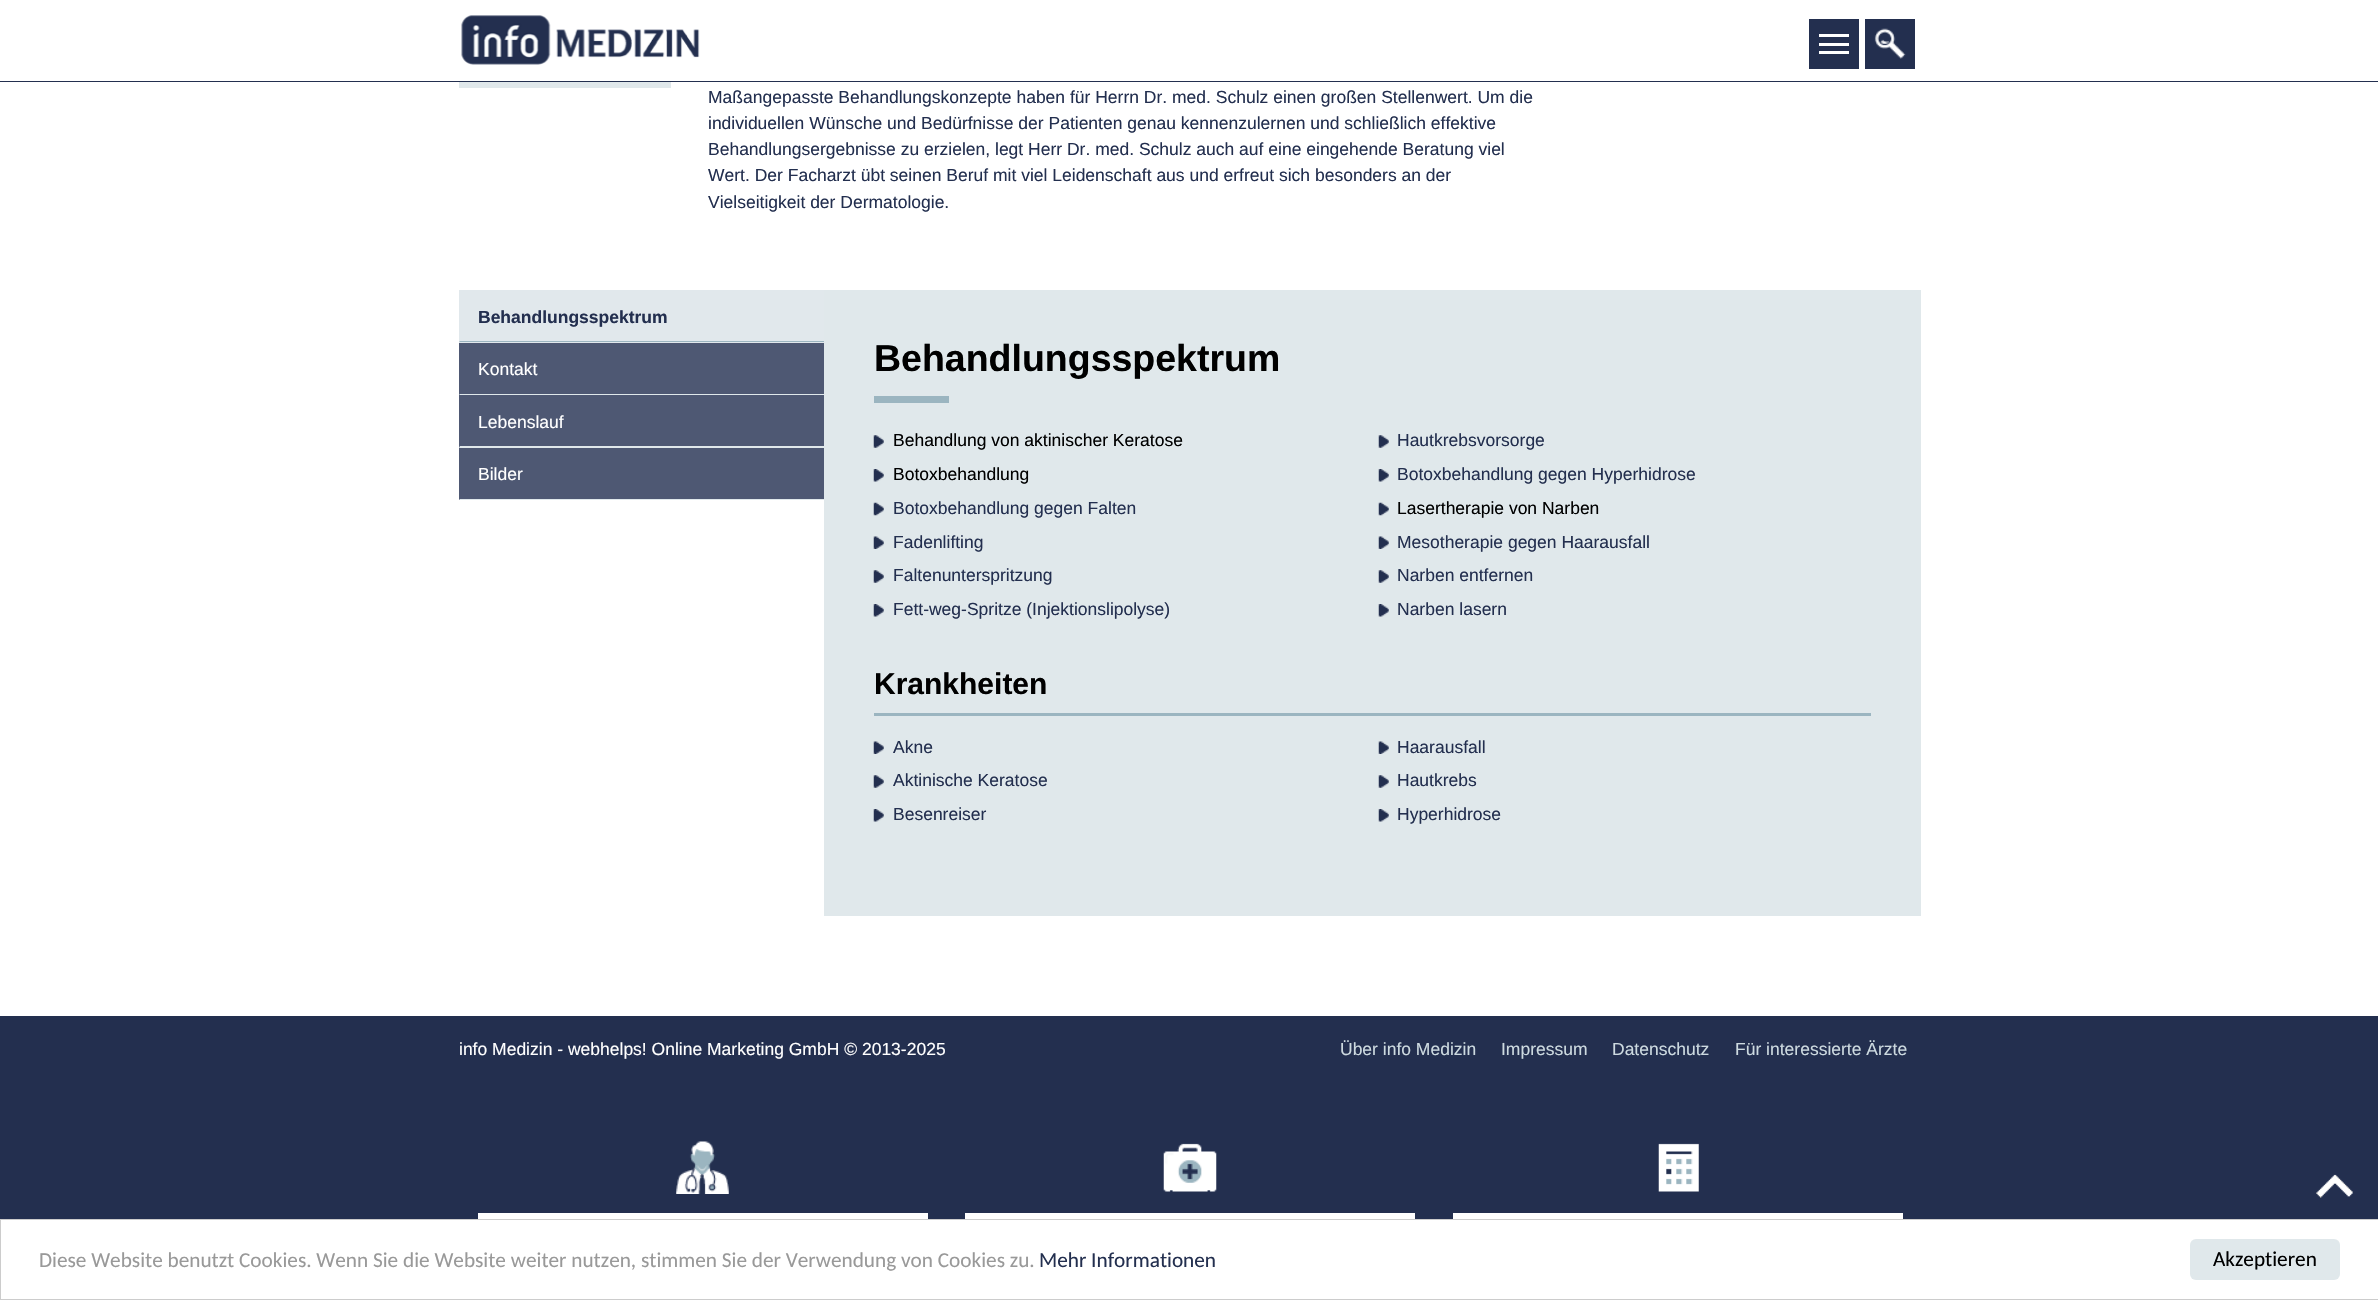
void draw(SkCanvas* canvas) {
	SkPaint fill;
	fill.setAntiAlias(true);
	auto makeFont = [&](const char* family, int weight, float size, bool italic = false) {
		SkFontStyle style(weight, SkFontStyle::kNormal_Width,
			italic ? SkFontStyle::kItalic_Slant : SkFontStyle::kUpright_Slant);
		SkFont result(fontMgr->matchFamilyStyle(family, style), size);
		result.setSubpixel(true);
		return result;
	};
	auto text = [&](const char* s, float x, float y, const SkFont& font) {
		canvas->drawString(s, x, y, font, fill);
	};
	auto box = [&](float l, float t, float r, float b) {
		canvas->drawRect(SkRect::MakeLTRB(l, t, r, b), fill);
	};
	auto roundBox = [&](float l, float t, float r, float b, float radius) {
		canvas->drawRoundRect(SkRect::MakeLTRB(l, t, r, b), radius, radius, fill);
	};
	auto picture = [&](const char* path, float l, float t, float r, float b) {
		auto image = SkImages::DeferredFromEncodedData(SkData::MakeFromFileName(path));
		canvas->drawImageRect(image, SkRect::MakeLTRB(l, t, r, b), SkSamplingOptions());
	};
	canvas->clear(0xFFFFFFFF);
	fill.setColor(0xFF232F4F);
	box(0, 81, 2378, 82);
	picture("image0.png", 461, 15, 700, 65);
	box(1809, 19, 1859, 69);
	fill.setColor(0xFFFFFFFF);
	box(1819, 43, 1849, 46);
	box(1819, 34, 1849, 37);
	box(1819, 51, 1849, 54);
	fill.setColor(0xFF232F4F);
	box(1865, 19, 1915, 69);
	picture("image1.png", 1874, 28, 1906, 59);
	fill.setColor(0xFFE0E8EB);
	box(459, 82, 671, 88);
	fill.setColor(0xFFE1E8EC);
	box(459, 290, 824, 343);
	fill.setColor(0xFF9BB5C0);
	canvas->drawPath(SkPathBuilder().moveTo(825, 342).lineTo(459, 342).lineTo(460, 341).lineTo(824, 341).close().detach(), fill);
	fill.setColor(0xFF4E5873);
	box(459, 343, 824, 500);
	fill.setColor(0xFFE0E8EB);
	canvas->drawPath(SkPathBuilder().moveTo(825, 395).lineTo(459, 395).lineTo(460, 394).lineTo(824, 394).close().detach(), fill);
	canvas->drawPath(SkPathBuilder().moveTo(825, 448).lineTo(459, 448).lineTo(460, 446).lineTo(824, 446).close().detach(), fill);
	canvas->drawPath(SkPathBuilder().moveTo(825, 500).lineTo(459, 500).lineTo(460, 499).lineTo(824, 499).close().detach(), fill);
	box(824, 290, 1921, 916);
	fill.setColor(0xFF9BB5C0);
	box(874, 396, 949, 403);
	picture("image2.png", 873, 435, 884, 448);
	picture("image2.png", 1378, 435, 1389, 448);
	picture("image3.png", 873, 469, 884, 482);
	picture("image3.png", 1378, 469, 1389, 482);
	picture("image4.png", 873, 502, 884, 516);
	picture("image4.png", 1378, 502, 1389, 516);
	picture("image5.png", 873, 536, 884, 549);
	picture("image5.png", 1378, 536, 1389, 549);
	picture("image2.png", 873, 570, 884, 583);
	picture("image2.png", 1378, 570, 1389, 583);
	picture("image3.png", 873, 604, 884, 617);
	picture("image3.png", 1378, 604, 1389, 617);
	box(874, 713, 1871, 716);
	picture("image5.png", 873, 741, 884, 754);
	picture("image5.png", 1378, 741, 1389, 754);
	picture("image2.png", 873, 775, 884, 788);
	picture("image2.png", 1378, 775, 1389, 788);
	picture("image3.png", 873, 809, 884, 822);
	picture("image3.png", 1378, 809, 1389, 822);
	fill.setColor(0xFF232F4F);
	box(0, 1016, 2378, 1219);
	picture("image6.png", 676, 1141, 729, 1194);
	fill.setColor(0xFFFFFFFF);
	box(478, 1213, 928, 1219);
	picture("image7.png", 1163, 1143, 1217, 1192);
	box(965, 1213, 1415, 1219);
	picture("image8.png", 1658, 1143, 1699, 1192);
	box(1453, 1213, 1903, 1219);
	picture("image9.png", 2316, 1174, 2353, 1198);
	fill.setStyle(SkPaint::kStroke_Style);
	fill.setStrokeWidth(1);
	fill.setColor(0xFFCCCCCC);
	canvas->drawRect(SkRect::MakeLTRB(0.5f, 1219.5f, 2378.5f, 1299.5f), fill);
	fill.setStyle(SkPaint::kFill_Style);
	fill.setColor(0xFFE0E8EB);
	roundBox(2190, 1239, 2340, 1280, 6);
	auto font1 = makeFont("Liberation Sans", 400, 17.5f);
	fill.setColor(0xFF232F4F);
	text("Maßangepasste Behandlungskonzepte haben für Herrn Dr. med. Schulz einen großen Stellenwert. Um die", 708, 103, font1);
	text("individuellen Wünsche und Bedürfnisse der Patienten genau kennenzulernen und schließlich effektive", 708, 129, font1);
	text("Behandlungsergebnisse zu erzielen, legt Herr Dr. med. Schulz auch auf eine eingehende Beratung viel", 708, 155, font1);
	text("Wert. Der Facharzt übt seinen Beruf mit viel Leidenschaft aus und erfreut sich besonders an der", 708, 181, font1);
	text("Vielseitigkeit der Dermatologie.", 708, 208, font1);
	auto font2 = makeFont("Liberation Sans", 700, 17.5f);
	text("Behandlungsspektrum", 478, 323, font2);
	fill.setColor(0xFFFFFFFF);
	text("Kontakt", 478, 375, font1);
	text("Lebenslauf", 478, 428, font1);
	text("Bilder", 478, 480, font1);
	auto font3 = makeFont("Liberation Sans", 700, 37.5f);
	fill.setColor(0xFF000000);
	text("Behandlungsspektrum", 874, 371, font3);
	text("Behandlung von aktinischer Keratose", 893, 446, font1);
	fill.setColor(0xFF232F4F);
	text("Hautkrebsvorsorge", 1397, 446, font1);
	fill.setColor(0xFF000000);
	text("Botoxbehandlung", 893, 480, font1);
	fill.setColor(0xFF232F4F);
	text("Botoxbehandlung gegen Hyperhidrose", 1397, 480, font1);
	text("Botoxbehandlung gegen Falten", 893, 514, font1);
	fill.setColor(0xFF000000);
	text("Lasertherapie von Narben", 1397, 514, font1);
	fill.setColor(0xFF232F4F);
	text("Fadenlifting", 893, 548, font1);
	text("Mesotherapie gegen Haarausfall", 1397, 548, font1);
	text("Faltenunterspritzung", 893, 581, font1);
	text("Narben entfernen", 1397, 581, font1);
	text("Fett-weg-Spritze (Injektionslipolyse)", 893, 615, font1);
	text("Narben lasern", 1397, 615, font1);
	auto font4 = makeFont("Liberation Sans", 700, 30);
	fill.setColor(0xFF000000);
	text("Krankheiten", 874, 694, font4);
	fill.setColor(0xFF232F4F);
	text("Akne", 893, 753, font1);
	text("Haarausfall", 1397, 753, font1);
	text("Aktinische Keratose", 893, 786, font1);
	text("Hautkrebs", 1397, 786, font1);
	text("Besenreiser", 893, 820, font1);
	text("Hyperhidrose", 1397, 820, font1);
	fill.setColor(0xFFFFFFFF);
	text("info Medizin - webhelps! Online Marketing GmbH © 2013-2025", 459, 1055, font1);
	fill.setColor(0xFFCDDAE0);
	text("Über info Medizin", 1340, 1055, font1);
	text("Impressum", 1501, 1055, font1);
	text("Datenschutz", 1612, 1055, font1);
	text("Für interessierte Ärzte", 1735, 1055, font1);
	auto font5 = makeFont("Carlito", 400, 21.25f);
	fill.setColor(0xFF999999);
	text("Diese Website benutzt Cookies. Wenn Sie die Website weiter nutzen, stimmen Sie der Verwendung von Cookies zu.", 39, 1267, font5);
	fill.setColor(0xFF232F4F);
	text("Mehr Informationen", 1039, 1267, font5);
	fill.setColor(0xFF000000);
	text("Akzeptieren", 2213, 1266, font5);
}
